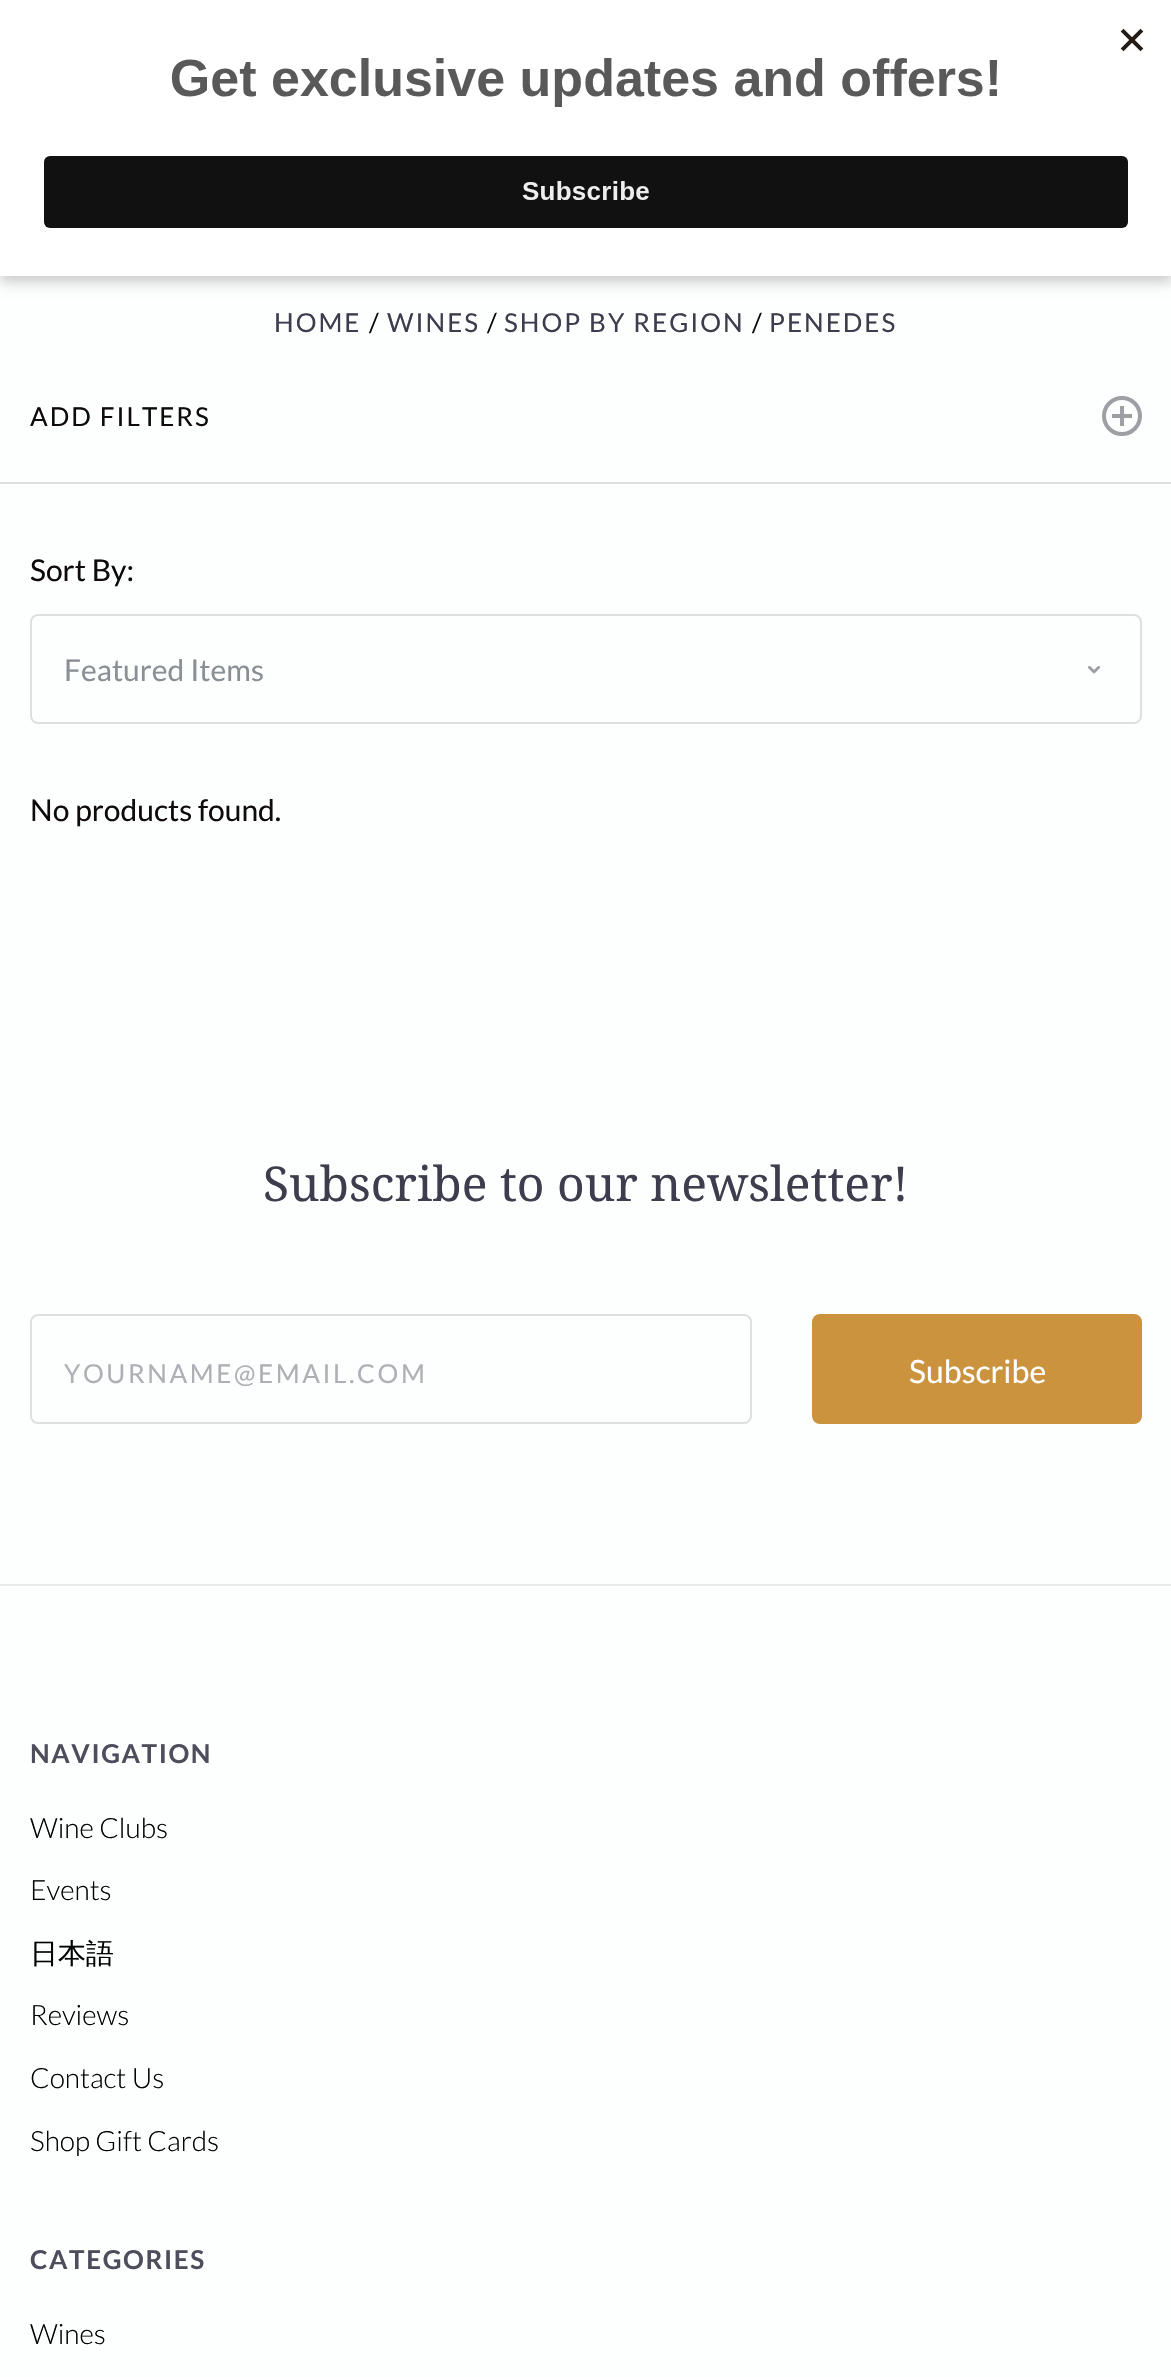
void draw(SkCanvas* canvas) {
	SkPaint fill;
	fill.setAntiAlias(true);
	auto makeFont = [&](const char* family, int weight, float size, bool italic = false) {
		SkFontStyle style(weight, SkFontStyle::kNormal_Width,
			italic ? SkFontStyle::kItalic_Slant : SkFontStyle::kUpright_Slant);
		SkFont result(fontMgr->matchFamilyStyle(family, style), size);
		result.setSubpixel(true);
		return result;
	};
	auto text = [&](const char* s, float x, float y, const SkFont& font) {
		canvas->drawString(s, x, y, font, fill);
	};
	auto spacedText = [&](const char* s, float x, float y, const SkFont& font, const SkPaint& ink, float letter, float word) {
		std::vector<SkGlyphID> glyphs(font.countText(s, strlen(s), SkTextEncoding::kUTF8));
		std::vector<float> xs(glyphs.size());
		font.textToGlyphs(s, strlen(s), SkTextEncoding::kUTF8, glyphs);
		font.getXPos(glyphs, xs, x);
		float extra = 0;
		for (size_t i = 0; i < glyphs.size(); i++) {
			xs[i] += extra;
			extra += letter + word * (glyphs[i] == font.unicharToGlyph(' '));
		}
		canvas->drawTextBlob(SkTextBlob::MakeFromPosHGlyphs(glyphs, xs, y, font), 0, 0, ink);
	};
	auto box = [&](float l, float t, float r, float b) {
		canvas->drawRect(SkRect::MakeLTRB(l, t, r, b), fill);
	};
	auto roundBox = [&](float l, float t, float r, float b, float radius) {
		canvas->drawRoundRect(SkRect::MakeLTRB(l, t, r, b), radius, radius, fill);
	};
	auto picture = [&](const char* path, float l, float t, float r, float b) {
		auto image = SkImages::DeferredFromEncodedData(SkData::MakeFromFileName(path));
		canvas->drawImageRect(image, SkRect::MakeLTRB(l, t, r, b), SkSamplingOptions());
	};
	canvas->clear(0xFFFDFFFF);
	fill.setColor(0x33000000);
	fill.setMaskFilter(SkMaskFilter::MakeBlur(kNormal_SkBlurStyle, 6));
	canvas->drawRect(SkRect::MakeLTRB(0, 6, 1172, 282), fill);
	fill.setMaskFilter(nullptr);
	fill.setColor(0xFFFFFFFF);
	box(0, 0, 1171, 276);
	picture("image0.png", 44, 28, 1144, 228);
	fill.setStyle(SkPaint::kStroke_Style);
	fill.setStrokeWidth(4);
	fill.setColor(0xFF9E9FA4);
	canvas->drawCircle(1122, 416, 18, fill);
	fill.setStyle(SkPaint::kFill_Style);
	box(1120, 406, 1124, 426);
	box(1112, 414, 1132, 418);
	fill.setColor(0xFFDFDFDF);
	box(0, 482, 1171, 484);
	fill.setStyle(SkPaint::kStroke_Style);
	fill.setStrokeWidth(2);
	canvas->drawRoundRect(SkRect::MakeLTRB(31, 615, 1141, 723), 7, 7, fill);
	picture("image1.png", 1088, 666, 1100, 674);
	canvas->drawRoundRect(SkRect::MakeLTRB(31, 1315, 751, 1423), 7, 7, fill);
	fill.setStyle(SkPaint::kFill_Style);
	fill.setColor(0xFFCB933E);
	roundBox(812, 1314, 1142, 1424, 8);
	fill.setColor(0xFFE8E8E8);
	box(0, 1584, 1171, 1586);
	auto font1 = makeFont("Lato", 400, 26);
	fill.setColor(0xFF3E3D4D);
	spacedText("HOME", 274, 332, font1, fill, 2, 0);
	fill.setColor(0xFF0F0B0B);
	spacedText("/", 369, 332, font1, fill, 2, 0);
	fill.setColor(0xFF3E3D4D);
	spacedText("WINES", 387, 332, font1, fill, 2, 0);
	fill.setColor(0xFF0F0B0B);
	spacedText("/", 487, 332, font1, fill, 2, 0);
	fill.setColor(0xFF3E3D4D);
	spacedText("SHOP BY REGION", 504, 332, font1, fill, 2, 0);
	fill.setColor(0xFF0F0B0B);
	spacedText("/", 752, 332, font1, fill, 2, 0);
	fill.setColor(0xFF3E3D4D);
	spacedText("PENEDES", 769, 332, font1, fill, 2, 0);
	fill.setColor(0xFF0F0B0B);
	spacedText("ADD FILTERS", 30, 426, font1, fill, 2, 0);
	auto font2 = makeFont("Lato", 400, 30);
	text("Sort By:", 30, 581, font2);
	fill.setColor(0xFF898F94);
	text("Featured Items", 64, 681, font2);
	fill.setColor(0xFF0F0B0B);
	text("No products found.", 30, 821, font2);
	auto font3 = makeFont("Droid Serif", 400, 48);
	fill.setColor(0xFF3E3D4D);
	text("Subscribe to our newsletter!", 263, 1201, font3);
	fill.setColor(0xFFADB1B5);
	spacedText("YOURNAME@EMAIL.COM", 64, 1383, font1, fill, 2.6f, 0);
	auto font4 = makeFont("Lato", 400, 32);
	fill.setColor(0xFFFFFFFF);
	text("Subscribe", 909, 1383, font4);
	auto font5 = makeFont("Lato", 700, 26);
	fill.setColor(0xFF4E4D5B);
	spacedText("NAVIGATION", 30, 1763, font5, fill, 1.6f, 0);
	auto font6 = makeFont("Lato", 300, 28);
	fill.setColor(0xFF000000);
	text("Wine Clubs", 30, 1838, font6);
	text("Events", 30, 1900, font6);
	auto font7 = makeFont("WenQuanYi Zen Hei", 500, 28);
	text("日本語", 30, 1963, font7);
	text("Reviews", 30, 2025, font6);
	text("Contact Us", 30, 2088, font6);
	text("Shop Gift Cards", 30, 2151, font6);
	fill.setColor(0xFF4E4D5B);
	spacedText("CATEGORIES", 30, 2269, font5, fill, 1.6f, 0);
	fill.setColor(0xFF000000);
	text("Wines", 30, 2344, font6);
}
